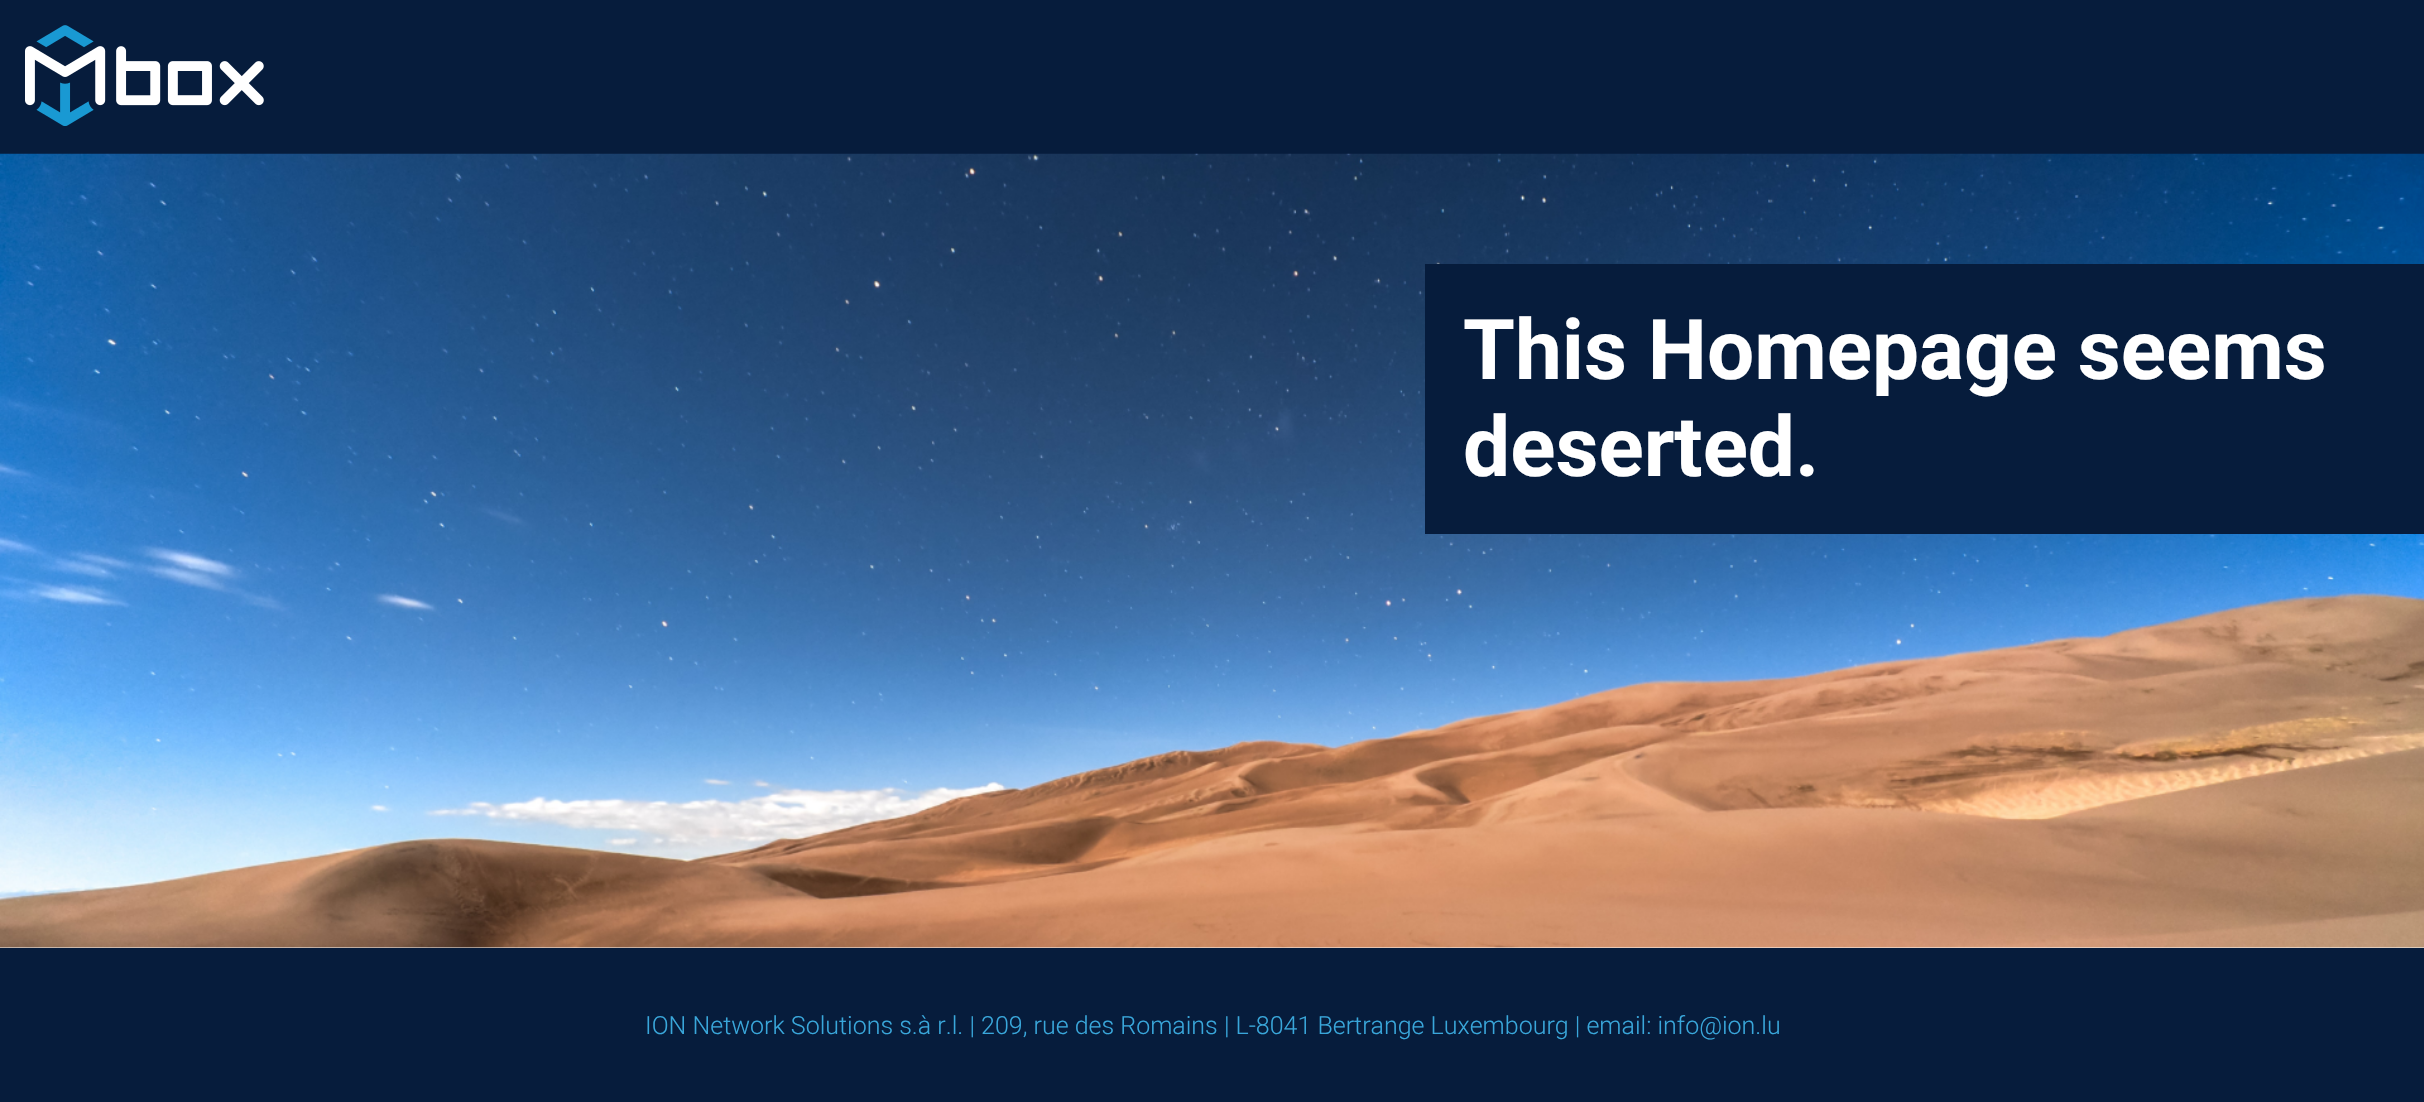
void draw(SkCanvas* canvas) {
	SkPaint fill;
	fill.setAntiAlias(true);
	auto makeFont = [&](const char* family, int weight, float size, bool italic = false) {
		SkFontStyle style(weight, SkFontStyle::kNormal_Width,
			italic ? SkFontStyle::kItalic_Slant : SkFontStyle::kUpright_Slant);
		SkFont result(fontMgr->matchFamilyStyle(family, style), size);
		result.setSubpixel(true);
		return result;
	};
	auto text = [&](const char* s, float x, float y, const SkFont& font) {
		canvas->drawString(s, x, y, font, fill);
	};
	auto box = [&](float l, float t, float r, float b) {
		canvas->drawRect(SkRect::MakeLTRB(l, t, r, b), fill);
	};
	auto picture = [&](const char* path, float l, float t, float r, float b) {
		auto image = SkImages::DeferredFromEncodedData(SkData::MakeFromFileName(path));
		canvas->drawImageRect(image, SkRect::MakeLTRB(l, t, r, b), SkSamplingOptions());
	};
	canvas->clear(0xFFFFFFFF);
	fill.setColor(0xFF061C3C);
	box(0, 0, 2424, 154);
	picture("image0.png", 25, 25, 264, 126);
	picture("image1.png", 0, 153, 2424, 948);
	box(1425, 264, 2424, 534);
	box(0, 948, 2424, 1102);
	auto font1 = makeFont("Roboto", 700, 83.75f);
	fill.setColor(0xFFFFFFFF);
	text("This Homepage seems", 1463, 379, font1);
	text("deserted.", 1463, 476, font1);
	auto font2 = makeFont("Roboto", 300, 25);
	fill.setColor(0xFF39A7DB);
	text("ION Network Solutions s.à r.l. | 209, rue des Romains | L-8041 Bertrange Luxembourg | email: info@ion.lu", 645, 1034, font2);
}
